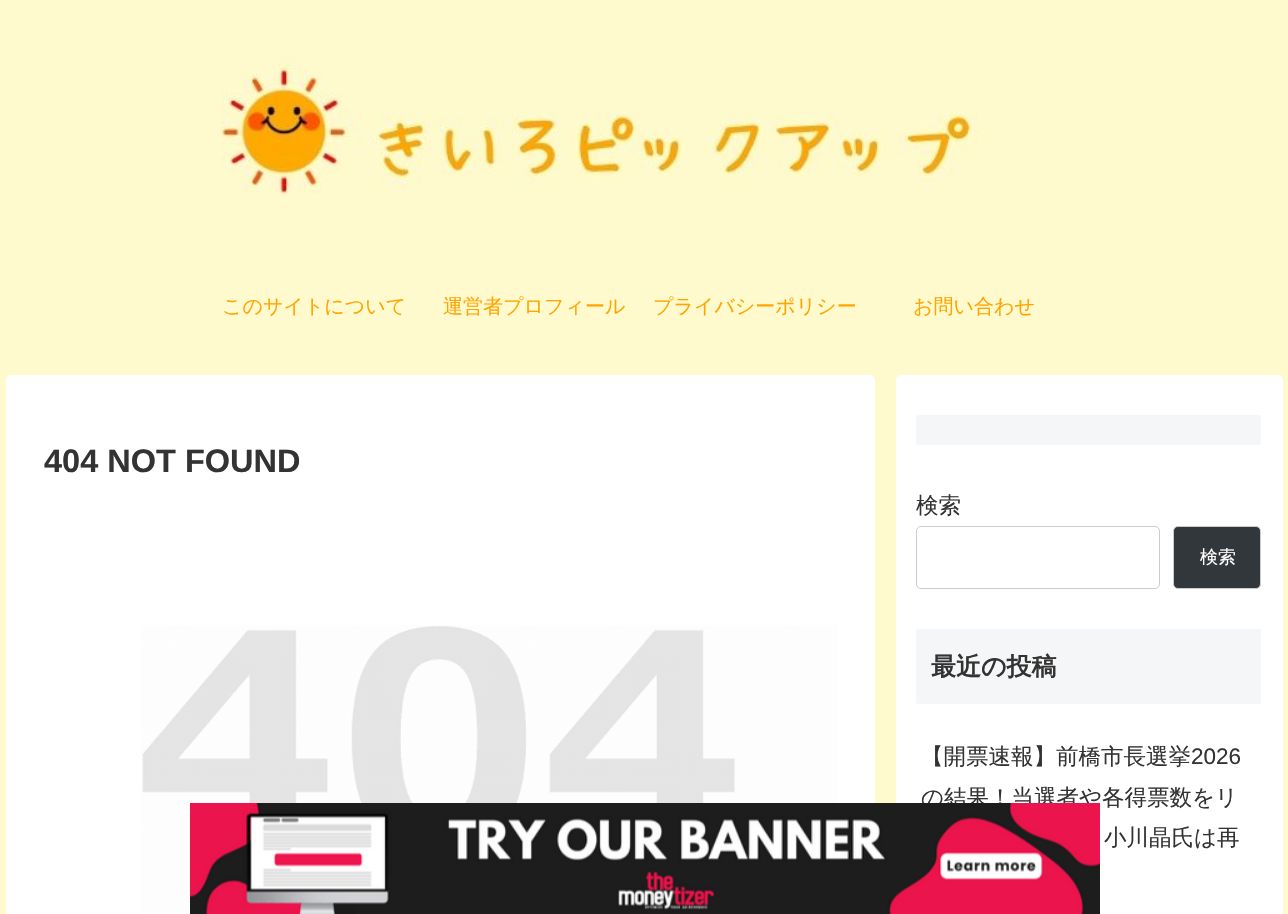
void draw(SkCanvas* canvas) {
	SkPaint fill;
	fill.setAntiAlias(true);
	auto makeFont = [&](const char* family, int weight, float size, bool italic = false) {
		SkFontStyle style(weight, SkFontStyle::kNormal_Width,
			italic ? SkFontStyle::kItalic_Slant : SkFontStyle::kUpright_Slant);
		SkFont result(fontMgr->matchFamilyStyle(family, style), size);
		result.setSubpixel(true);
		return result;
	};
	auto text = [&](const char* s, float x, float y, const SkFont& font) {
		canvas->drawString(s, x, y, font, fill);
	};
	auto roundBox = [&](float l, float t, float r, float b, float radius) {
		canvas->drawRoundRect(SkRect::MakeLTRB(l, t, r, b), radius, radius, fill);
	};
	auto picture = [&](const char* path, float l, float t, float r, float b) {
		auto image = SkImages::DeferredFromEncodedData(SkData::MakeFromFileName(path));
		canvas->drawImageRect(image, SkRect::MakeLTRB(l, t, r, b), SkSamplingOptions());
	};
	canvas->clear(0xFFFFFACD);
	picture("image0.png", 221, 54, 978, 195);
	fill.setColor(0xFFFFFFFF);
	roundBox(6, 375, 875, 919, 5);
	picture("image1.png", 141, 625, 839, 914);
	roundBox(896, 375, 1283, 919, 5);
	fill.setColor(0xFFF5F6F7);
	roundBox(916, 415, 1261, 445, 2.5f);
	fill.setStyle(SkPaint::kStroke_Style);
	fill.setStrokeWidth(1);
	fill.setColor(0xFFCCCCCC);
	canvas->drawRoundRect(SkRect::MakeLTRB(916.5f, 526.5f, 1159.5f, 588.5f), 4.5f, 4.5f, fill);
	fill.setStyle(SkPaint::kFill_Style);
	fill.setColor(0xFF32373C);
	canvas->drawRoundRect(SkRect::MakeLTRB(1173.5f, 526.5f, 1260.5f, 588.5f), 4.5f, 4.5f, fill);
	fill.setStyle(SkPaint::kStroke_Style);
	fill.setColor(0xFFCCCCCC);
	canvas->drawRoundRect(SkRect::MakeLTRB(1173.5f, 526.5f, 1260.5f, 588.5f), 4.5f, 4.5f, fill);
	fill.setStyle(SkPaint::kFill_Style);
	fill.setColor(0xFFF5F6F7);
	roundBox(916, 629, 1261, 704, 2.5f);
	auto font1 = makeFont("WenQuanYi Zen Hei", 500, 20);
	fill.setColor(0xFFFFA500);
	text("このサイトについて", 222, 313, font1);
	text("運営者プロフィール", 443, 313, font1);
	text("プライバシーポリシー", 653, 313, font1);
	text("お問い合わせ", 913, 313, font1);
	auto font2 = makeFont("Liberation Sans", 700, 32.5f);
	fill.setColor(0xFF333333);
	text("404 NOT FOUND", 44, 472, font2);
	auto font3 = makeFont("WenQuanYi Zen Hei", 500, 22.5f);
	text("検索", 916, 513, font3);
	auto font4 = makeFont("WenQuanYi Zen Hei", 500, 18);
	fill.setColor(0xFFFFFFFF);
	text("検索", 1200, 563, font4);
	auto font5 = makeFont("WenQuanYi Zen Hei", 700, 25);
	fill.setColor(0xFF333333);
	text("最近の投稿", 931, 675, font5);
	text("【開票速報】前橋市長選挙", 921, 764, font3);
	auto font6 = makeFont("Liberation Sans", 400, 22.5f);
	text("2026", 1191, 764, font6);
	text("の結果！当選者や各得票数をリ", 921, 805, font3);
	text("小川晶氏は再", 1104, 845, font3);
	picture("image2.png", 839, 803, 1100, 914);
}
